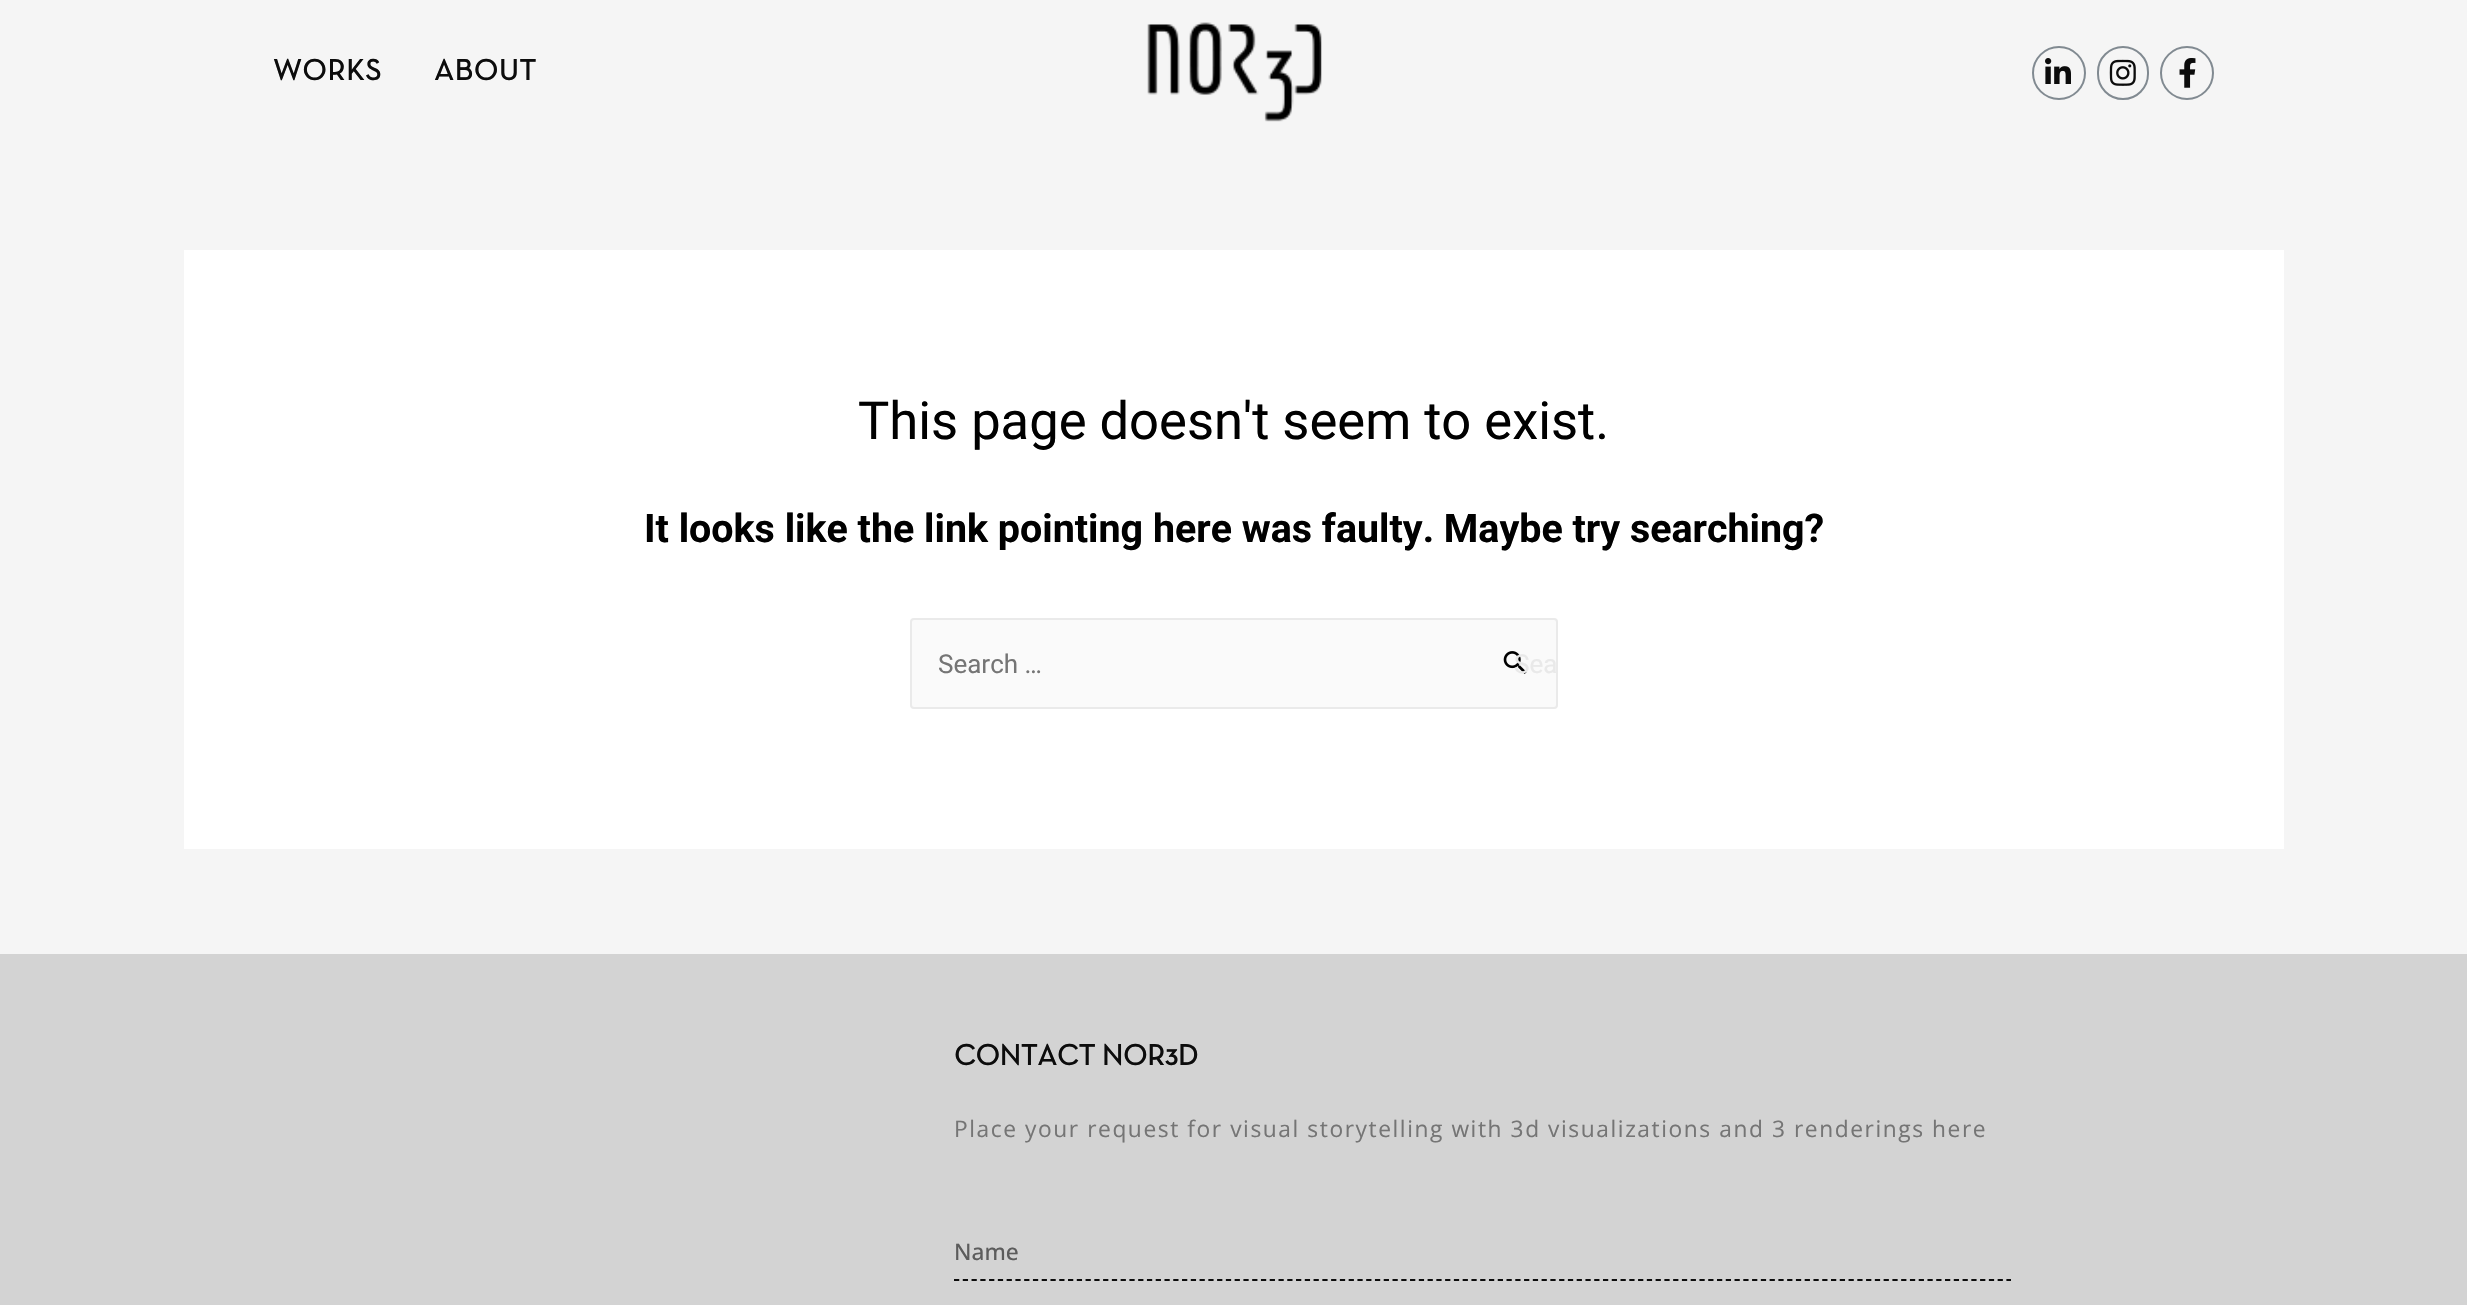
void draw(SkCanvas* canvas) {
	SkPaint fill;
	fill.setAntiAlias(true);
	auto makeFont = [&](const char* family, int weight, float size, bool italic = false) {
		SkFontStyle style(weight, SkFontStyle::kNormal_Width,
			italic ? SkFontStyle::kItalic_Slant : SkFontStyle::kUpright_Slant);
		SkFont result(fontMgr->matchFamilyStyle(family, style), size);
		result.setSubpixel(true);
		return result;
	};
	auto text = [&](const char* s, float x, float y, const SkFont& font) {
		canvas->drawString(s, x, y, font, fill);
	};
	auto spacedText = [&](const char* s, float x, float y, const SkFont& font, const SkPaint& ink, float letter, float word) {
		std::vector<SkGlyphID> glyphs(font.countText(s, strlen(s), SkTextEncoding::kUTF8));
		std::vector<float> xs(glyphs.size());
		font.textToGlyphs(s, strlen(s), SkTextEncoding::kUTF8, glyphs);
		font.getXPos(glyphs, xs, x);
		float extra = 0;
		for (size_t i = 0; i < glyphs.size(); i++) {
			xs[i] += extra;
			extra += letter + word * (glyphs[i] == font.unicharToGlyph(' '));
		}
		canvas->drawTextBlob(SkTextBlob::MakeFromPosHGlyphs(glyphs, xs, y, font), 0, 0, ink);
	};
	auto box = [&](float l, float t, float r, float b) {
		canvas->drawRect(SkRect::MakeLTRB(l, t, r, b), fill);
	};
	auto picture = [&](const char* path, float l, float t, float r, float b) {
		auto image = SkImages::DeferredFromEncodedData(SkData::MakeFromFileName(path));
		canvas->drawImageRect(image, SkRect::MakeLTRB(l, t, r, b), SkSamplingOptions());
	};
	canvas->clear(0xFFF5F5F5);
	picture("image0.png", 1147, 22, 1322, 122);
	fill.setStyle(SkPaint::kStroke_Style);
	fill.setStrokeWidth(2);
	fill.setColor(0xFF818A91);
	canvas->drawCircle(2059, 73, 26, fill);
	picture("image1.png", 2045, 58, 2071, 84);
	canvas->drawRoundRect(SkRect::MakeLTRB(2098, 47, 2148, 99), 25, 25, fill);
	picture("image2.png", 2109, 59, 2136, 86);
	canvas->drawCircle(2187, 73, 26, fill);
	picture("image3.png", 2179, 58, 2196, 88);
	fill.setStyle(SkPaint::kFill_Style);
	fill.setColor(0xFFFFFFFF);
	box(184, 250, 2284, 849);
	fill.setColor(0xFFFAFAFA);
	canvas->drawRoundRect(SkRect::MakeLTRB(911, 619, 1557, 708), 3, 3, fill);
	fill.setStyle(SkPaint::kStroke_Style);
	fill.setColor(0xFFEAEAEA);
	canvas->drawRoundRect(SkRect::MakeLTRB(911, 619, 1557, 708), 3, 3, fill);
	picture("image4.png", 1503, 651, 1527, 674);
	fill.setStyle(SkPaint::kFill_Style);
	fill.setColor(0xFFD3D3D3);
	box(0, 954, 2467, 1305);
	fill.setStyle(SkPaint::kStroke_Style);
	fill.setStrokeWidth(1.8f);
	fill.setColor(0xFF0C0C0C);
	fill.setPathEffect(SkDashPathEffect::Make({{5.25f, 3.52f}}, 0));
	canvas->drawPath(SkPathBuilder().moveTo(954, 1280).lineTo(2011, 1280).detach(), fill);
	fill.setPathEffect(nullptr);
	auto font1 = makeFont("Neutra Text", 700, 29.75f);
	fill.setStyle(SkPaint::kFill_Style);
	spacedText("WORKS", 273, 80, font1, fill, 1, 0);
	spacedText("ABOUT", 434, 80, font1, fill, 1, 0);
	auto font2 = makeFont("Roboto", 400, 52.5f);
	fill.setColor(0xFF000000);
	text("This page doesn't seem to exist.", 858, 439, font2);
	auto font3 = makeFont("Roboto", 700, 39.4f);
	text("It looks like the link pointing here was faulty. Maybe try searching?", 644, 542, font3);
	auto font4 = makeFont("Roboto", 400, 26);
	fill.setColor(0xFF757575);
	text("Search …", 938, 673, font4);
	fill.setColor(0xFFE9E9E9);
	text("Sea", 1514, 673, font4);
	fill.setColor(0xFF0C0C0C);
	text("CONTACT NOR3D", 954, 1065, font1);
	auto font5 = makeFont("Open Sans", 400, 22.75f);
	fill.setColor(0xFF757575);
	spacedText("Place your request for visual storytelling with 3d visualizations and 3 renderings here", 954, 1137, font5, fill, 1.57f, 0);
	auto font6 = makeFont("Open Sans", 500, 22.75f);
	fill.setColor(0xFF5C5C5C);
	text("Name", 954, 1260, font6);
}
